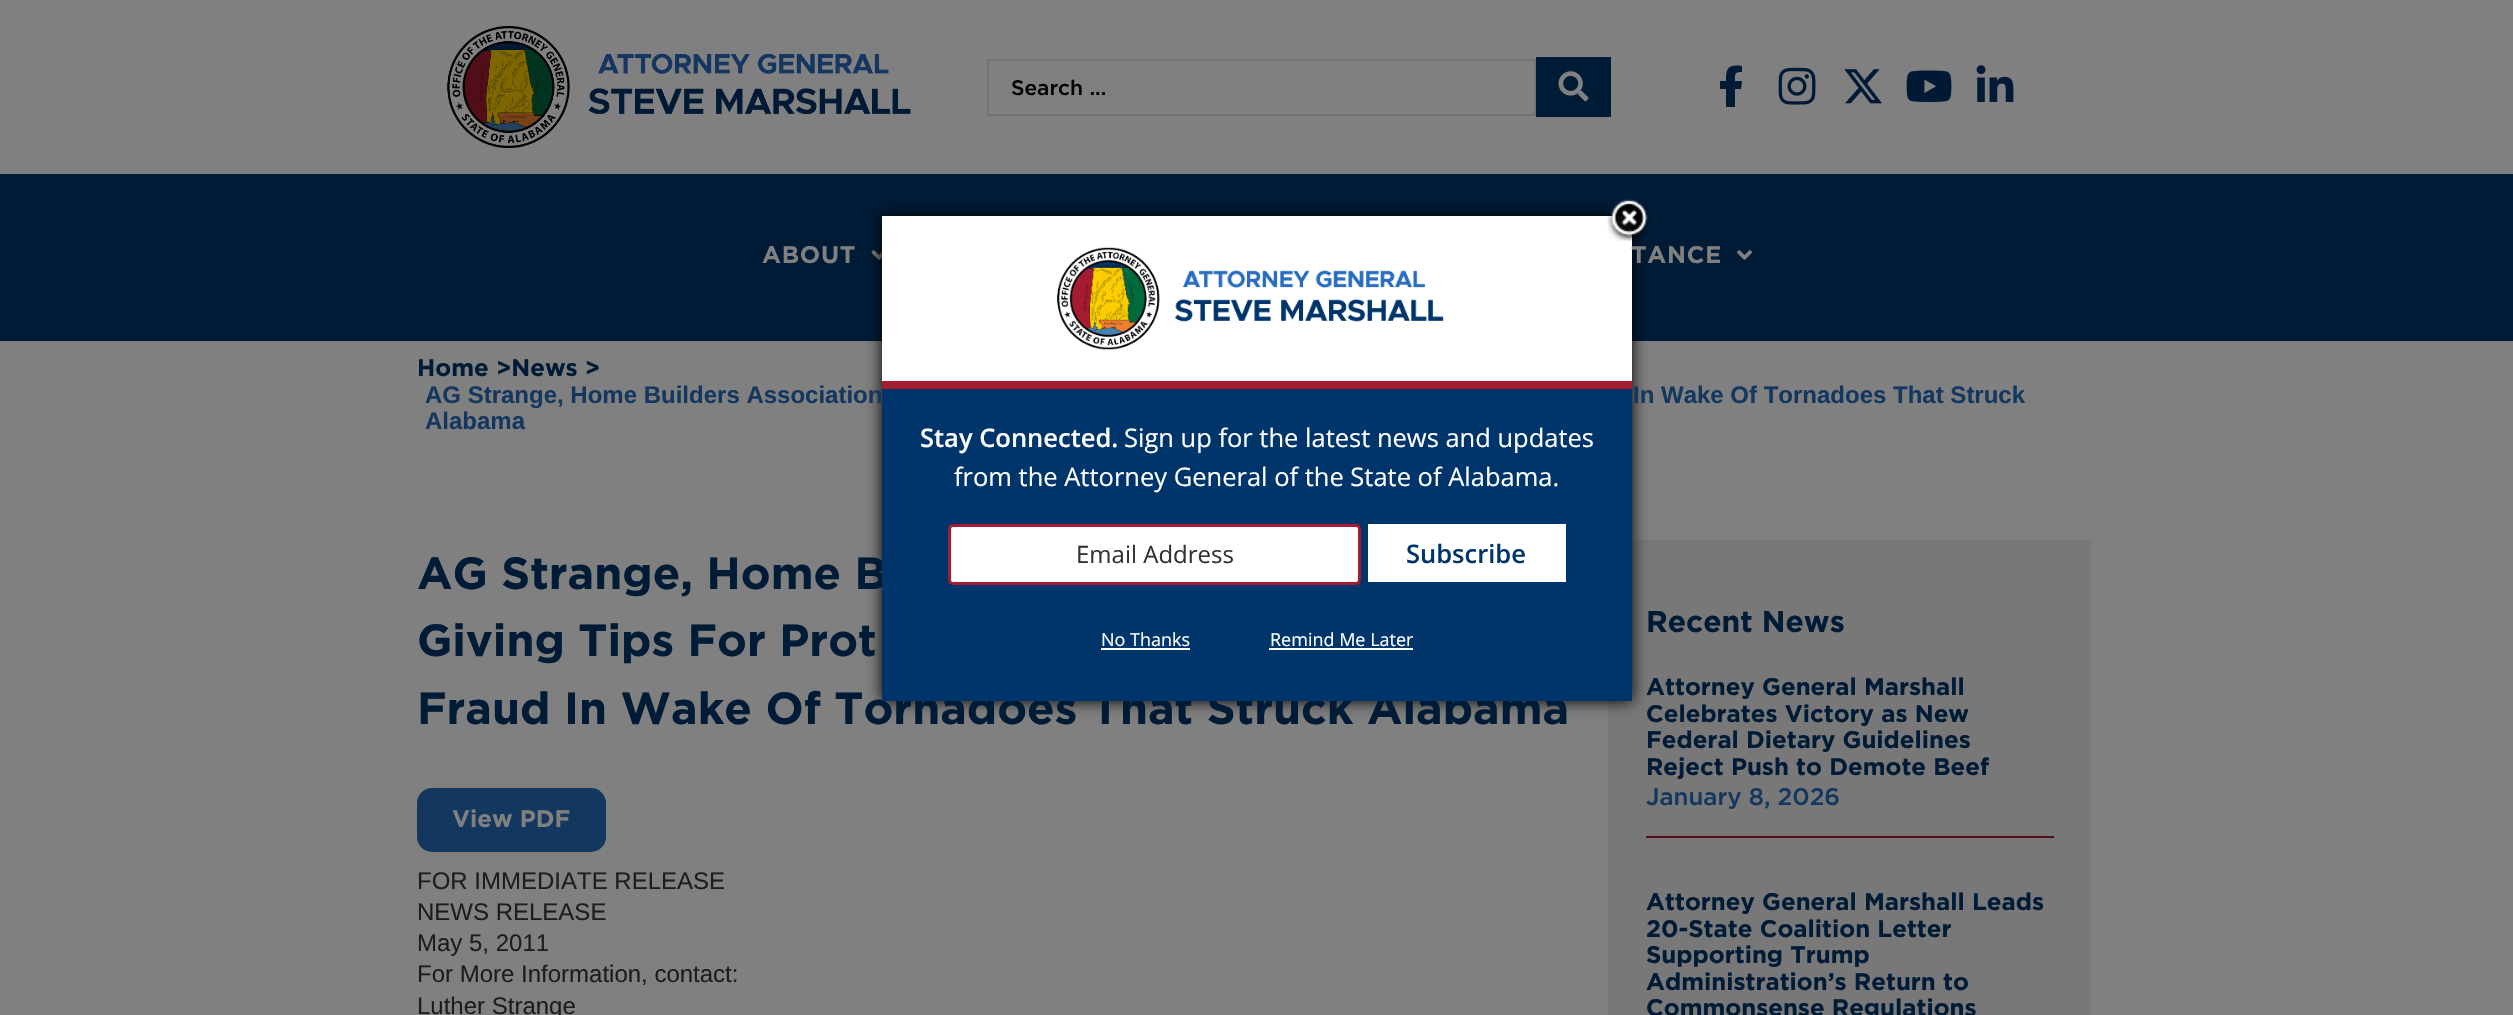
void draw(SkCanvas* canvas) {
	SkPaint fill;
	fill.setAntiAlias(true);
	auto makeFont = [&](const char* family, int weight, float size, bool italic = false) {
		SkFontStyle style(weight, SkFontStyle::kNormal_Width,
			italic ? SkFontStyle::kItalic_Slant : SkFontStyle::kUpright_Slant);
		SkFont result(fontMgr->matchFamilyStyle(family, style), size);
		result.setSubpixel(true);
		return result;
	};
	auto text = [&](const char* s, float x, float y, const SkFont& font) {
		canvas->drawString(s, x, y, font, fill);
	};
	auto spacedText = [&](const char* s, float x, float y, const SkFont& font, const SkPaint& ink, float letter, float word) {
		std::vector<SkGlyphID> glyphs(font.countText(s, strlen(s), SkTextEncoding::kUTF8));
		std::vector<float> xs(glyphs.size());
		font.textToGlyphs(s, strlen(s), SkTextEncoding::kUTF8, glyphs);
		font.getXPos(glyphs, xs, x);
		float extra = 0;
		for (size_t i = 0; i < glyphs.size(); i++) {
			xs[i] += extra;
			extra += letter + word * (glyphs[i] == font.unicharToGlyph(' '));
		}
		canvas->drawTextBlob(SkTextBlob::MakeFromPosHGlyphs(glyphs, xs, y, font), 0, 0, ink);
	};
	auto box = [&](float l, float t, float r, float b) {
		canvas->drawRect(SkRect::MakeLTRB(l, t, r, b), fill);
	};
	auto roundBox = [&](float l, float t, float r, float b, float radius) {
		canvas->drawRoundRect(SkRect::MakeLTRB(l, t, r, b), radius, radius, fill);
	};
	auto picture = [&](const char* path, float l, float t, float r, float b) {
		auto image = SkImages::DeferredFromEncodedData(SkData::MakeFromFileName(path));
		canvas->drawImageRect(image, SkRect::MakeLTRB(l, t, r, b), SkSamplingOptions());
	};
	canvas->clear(0xFF808080);
	picture("image0.png", 447, 26, 911, 148);
	fill.setStyle(SkPaint::kStroke_Style);
	fill.setStrokeWidth(2);
	fill.setColor(0xFF717376);
	canvas->drawRect(SkRect::MakeLTRB(988, 60, 1535, 115), fill);
	fill.setStyle(SkPaint::kFill_Style);
	fill.setColor(0xFF001B36);
	box(1536, 57, 1611, 117);
	picture("image1.png", 1558, 71, 1589, 102);
	canvas->drawPath(SkPathBuilder().moveTo(1741, 89).lineTo(1735, 89).lineTo(1735, 107).lineTo(1726, 107).lineTo(1726, 89).lineTo(1720, 89).lineTo(1720, 81).lineTo(1726, 81).cubicTo(1726, 68, 1728, 64, 1742, 66).lineTo(1742, 72).cubicTo(1734, 72, 1735, 74, 1735, 81).lineTo(1742, 81).close().detach(), fill);
	picture("image2.png", 1778, 67, 1816, 105);
	picture("image3.png", 1844, 69, 1882, 104);
	picture("image4.png", 1906, 70, 1952, 102);
	picture("image5.png", 1976, 65, 2014, 102);
	box(0, 174, 2513, 341);
	picture("image6.png", 871, 250, 882, 260);
	picture("image7.png", 1737, 250, 1752, 260);
	fill.setColor(0xFF143760);
	roundBox(417, 788, 606, 852, 15);
	fill.setColor(0xFF787878);
	box(1608, 540, 2091, 1015);
	fill.setColor(0xFF530E18);
	box(1646, 836, 2054, 838);
	fill.setColor(0xFF000000);
	fill.setMaskFilter(SkMaskFilter::MakeBlur(kNormal_SkBlurStyle, 7.5f));
	canvas->drawRect(SkRect::MakeLTRB(882, 216, 1632, 701), fill);
	fill.setMaskFilter(nullptr);
	fill.setColor(0xFFFFFFFF);
	box(882, 216, 1632, 381);
	fill.setColor(0xFFA51C30);
	box(882, 381, 1632, 389);
	picture("image8.png", 1607, 198, 1650, 242);
	picture("image9.png", 1057, 247, 1444, 350);
	auto font1 = makeFont("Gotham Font", 500, 21);
	fill.setColor(0xFF000000);
	text("Search ...", 1011, 95, font1);
	auto font2 = makeFont("Gotham Font", 700, 24);
	fill.setColor(0xFF808080);
	spacedText("ABOUT", 762, 263, font2, fill, 0.75f, 0);
	spacedText("TANCE", 1631, 263, font2, fill, 0.75f, 0);
	fill.setColor(0xFF001B36);
	text("Home >News >", 417, 376, font2);
	auto font3 = makeFont("Liberation Sans", 700, 24);
	fill.setColor(0xFF143760);
	text("AG Strange, Home Builders Association", 425, 403, font3);
	text("In Wake Of Tornadoes That Struck", 1633, 403, font3);
	text("Alabama", 425, 429, font3);
	auto font4 = makeFont("Gotham Font", 700, 45);
	fill.setColor(0xFF001B36);
	text("AG Strange, Home B", 417, 589, font4);
	text("Giving Tips For Prot", 417, 656, font4);
	text("Fraud In Wake Of Tornadoes That Struck Alabama", 417, 724, font4);
	fill.setColor(0xFF808080);
	text("View PDF", 452, 827, font2);
	auto font5 = makeFont("Liberation Sans", 400, 24);
	fill.setColor(0xFF1D1D1D);
	text("FOR IMMEDIATE RELEASE", 417, 889, font5);
	text("NEWS RELEASE", 417, 920, font5);
	text("May 5, 2011", 417, 951, font5);
	text("For More Information, contact:", 417, 982, font5);
	text("Luther Strange", 417, 1014, font5);
	auto font6 = makeFont("Gotham Font", 700, 30);
	fill.setColor(0xFF001B36);
	text("Recent News", 1646, 632, font6);
	text("Attorney General Marshall", 1646, 695, font2);
	text("Celebrates Victory as New", 1646, 722, font2);
	text("Federal Dietary Guidelines", 1646, 748, font2);
	text("Reject Push to Demote Beef", 1646, 775, font2);
	auto font7 = makeFont("Gotham Font", 500, 24);
	fill.setColor(0xFF143760);
	text("January 8, 2026", 1646, 805, font7);
	fill.setColor(0xFF001B36);
	text("Attorney General Marshall Leads", 1646, 910, font2);
	text("20-State Coalition Letter", 1646, 937, font2);
	text("Supporting Trump", 1646, 963, font2);
	text("Administration’s Return to", 1646, 990, font2);
	text("Commonsense Regulations", 1646, 1016, font2);
	fill.setColor(0xFF00356B);
	box(882, 389, 1632, 701);
	auto font8 = makeFont("Open Sans", 600, 25.5f);
	fill.setColor(0xFFFFFFFF);
	text("Stay Connected.", 920, 447, font8);
	auto font9 = makeFont("Open Sans", 400, 25.5f);
	text("Sign up for the latest news and updates", 1124, 447, font9);
	text("from the Attorney General of the State of Alabama.", 954, 486, font9);
	canvas->drawRoundRect(SkRect::MakeLTRB(949.5f, 525.5f, 1359.5f, 583.5f), 3.5f, 3.5f, fill);
	fill.setStyle(SkPaint::kStroke_Style);
	fill.setStrokeWidth(3);
	fill.setColor(0xFFA51C30);
	canvas->drawRoundRect(SkRect::MakeLTRB(949.5f, 525.5f, 1359.5f, 583.5f), 3.5f, 3.5f, fill);
	auto font10 = makeFont("Open Sans", 400, 24);
	fill.setStyle(SkPaint::kFill_Style);
	fill.setColor(0xFF333333);
	text("Email Address", 1076, 563, font10);
	fill.setColor(0xFFFFFFFF);
	box(1368, 524, 1566, 582);
	fill.setColor(0xFF00356B);
	text("Subscribe", 1406, 563, font8);
	auto font11 = makeFont("Open Sans", 400, 18);
	fill.setColor(0xFFFFFFFF);
	text("No Thanks", 1101, 646, font11);
	box(1101, 648, 1190, 650);
	text("Remind Me Later", 1270, 646, font11);
	box(1269, 648, 1413, 650);
}
